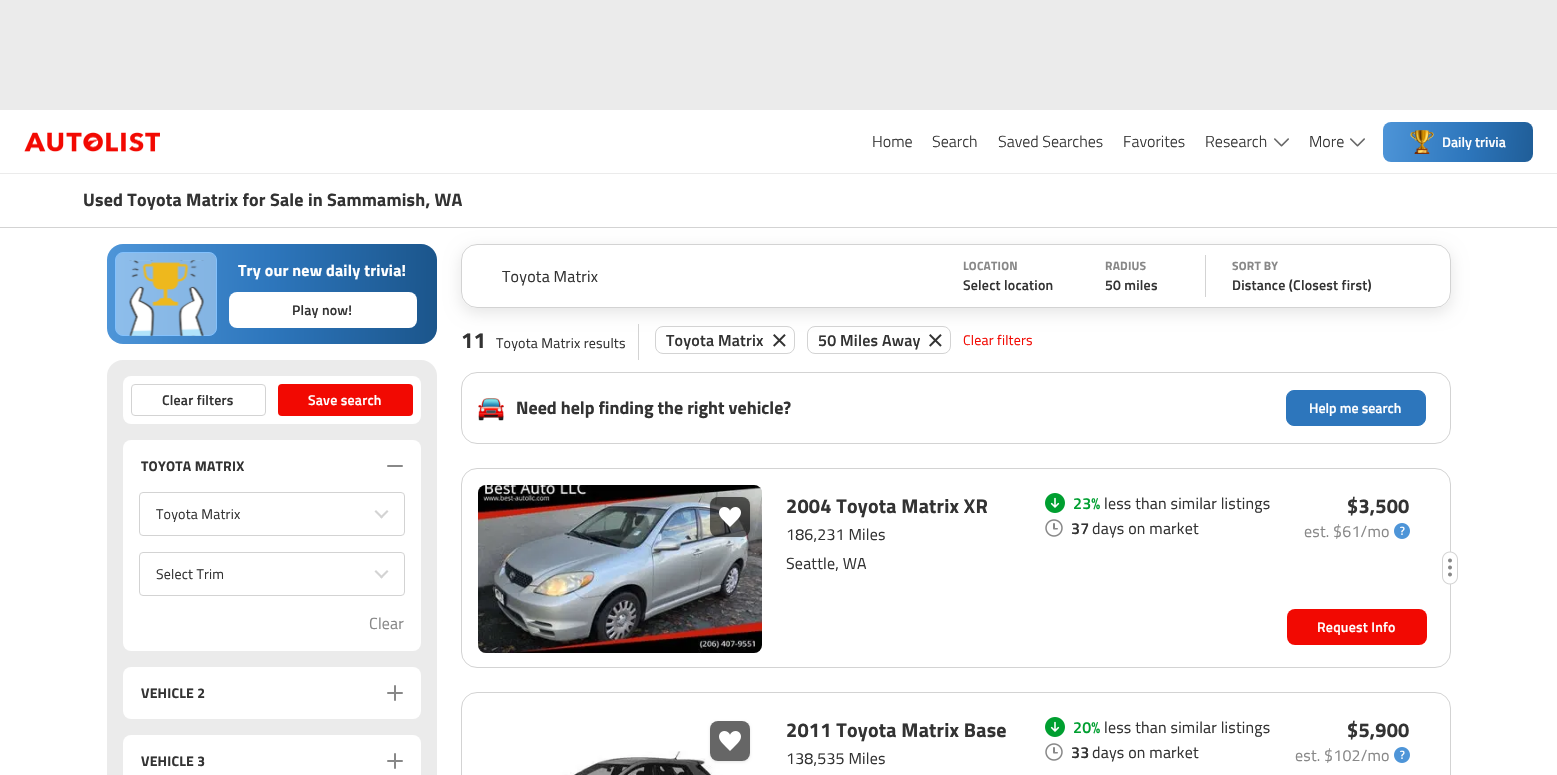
void draw(SkCanvas* canvas) {
	SkPaint fill;
	fill.setAntiAlias(true);
	auto makeFont = [&](const char* family, int weight, float size, bool italic = false) {
		SkFontStyle style(weight, SkFontStyle::kNormal_Width,
			italic ? SkFontStyle::kItalic_Slant : SkFontStyle::kUpright_Slant);
		SkFont result(fontMgr->matchFamilyStyle(family, style), size);
		result.setSubpixel(true);
		return result;
	};
	auto text = [&](const char* s, float x, float y, const SkFont& font) {
		canvas->drawString(s, x, y, font, fill);
	};
	auto spacedText = [&](const char* s, float x, float y, const SkFont& font, const SkPaint& ink, float letter, float word) {
		std::vector<SkGlyphID> glyphs(font.countText(s, strlen(s), SkTextEncoding::kUTF8));
		std::vector<float> xs(glyphs.size());
		font.textToGlyphs(s, strlen(s), SkTextEncoding::kUTF8, glyphs);
		font.getXPos(glyphs, xs, x);
		float extra = 0;
		for (size_t i = 0; i < glyphs.size(); i++) {
			xs[i] += extra;
			extra += letter + word * (glyphs[i] == font.unicharToGlyph(' '));
		}
		canvas->drawTextBlob(SkTextBlob::MakeFromPosHGlyphs(glyphs, xs, y, font), 0, 0, ink);
	};
	auto box = [&](float l, float t, float r, float b) {
		canvas->drawRect(SkRect::MakeLTRB(l, t, r, b), fill);
	};
	auto roundBox = [&](float l, float t, float r, float b, float radius) {
		canvas->drawRoundRect(SkRect::MakeLTRB(l, t, r, b), radius, radius, fill);
	};
	auto picture = [&](const char* path, float l, float t, float r, float b) {
		auto image = SkImages::DeferredFromEncodedData(SkData::MakeFromFileName(path));
		canvas->drawImageRect(image, SkRect::MakeLTRB(l, t, r, b), SkSamplingOptions());
	};
	canvas->clear(0xFFFFFFFF);
	fill.setColor(0xFFEBEBEB);
	box(0, 173, 1557, 174);
	box(0, 0, 1557, 110);
	picture("image0.png", 24, 132, 160, 152);
	picture("image1.png", 1274, 138, 1289, 147);
	picture("image1.png", 1350, 138, 1365, 147);
	{
		const SkColor colors[] = {0xFF4E95D8, 0xFF2D76BC, 0xFF1B558B};
		const float stops[] = {0, 0.5f, 1};
		const SkPoint ends[] = {{1380, 134}, {1557, 152}};
		fill.setShader(SkGradientShader::MakeLinear(ends, colors, stops, 3, SkTileMode::kClamp));
		fill.setAlpha(255);
	}
	roundBox(1383, 122, 1533, 162, 8);
	picture("image2.png", 1410, 130, 1434, 154);
	fill.setShader(nullptr);
	fill.setColor(0xFFD3D3D3);
	box(0, 227, 1557, 228);
	{
		const SkColor colors[] = {0xFF4E95D8, 0xFF2D76BC, 0xFF1B558B};
		const float stops[] = {0, 0.5f, 1};
		const SkPoint ends[] = {{106, 292}, {438, 296}};
		fill.setShader(SkGradientShader::MakeLinear(ends, colors, stops, 3, SkTileMode::kClamp));
		fill.setAlpha(255);
	}
	roundBox(107, 244, 437, 344, 16);
	fill.setShader(nullptr);
	fill.setColor(0x80CDE7FF);
	canvas->drawRoundRect(SkRect::MakeLTRB(115.5f, 252.5f, 216.5f, 335.5f), 7.5f, 7.5f, fill);
	fill.setStyle(SkPaint::kStroke_Style);
	fill.setStrokeWidth(1);
	fill.setColor(0xFF83C1FD);
	canvas->drawRoundRect(SkRect::MakeLTRB(115.5f, 252.5f, 216.5f, 335.5f), 7.5f, 7.5f, fill);
	picture("image3.png", 129, 260, 204, 336);
	fill.setStyle(SkPaint::kFill_Style);
	fill.setColor(0xFFFFFFFF);
	roundBox(229, 292, 417, 328, 8);
	fill.setColor(0xFFEBEBEB);
	roundBox(107, 360, 437, 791, 16);
	fill.setColor(0xFFFFFFFF);
	roundBox(123, 376, 421, 424, 8);
	fill.setStyle(SkPaint::kStroke_Style);
	fill.setColor(0xFFD3D3D3);
	canvas->drawRoundRect(SkRect::MakeLTRB(131.5f, 384.5f, 265.5f, 415.5f), 3.5f, 3.5f, fill);
	fill.setStyle(SkPaint::kFill_Style);
	fill.setColor(0xFFF20902);
	roundBox(278, 384, 413, 416, 4);
	fill.setColor(0xFFFFFFFF);
	roundBox(123, 440, 421, 651, 8);
	fill.setColor(0xFF888888);
	roundBox(387, 465, 403, 467, 1);
	fill.setStyle(SkPaint::kStroke_Style);
	fill.setColor(0xFFD3D3D3);
	canvas->drawRoundRect(SkRect::MakeLTRB(139.5f, 492.5f, 404.5f, 535.5f), 3.5f, 3.5f, fill);
	fill.setStyle(SkPaint::kFill_Style);
	canvas->drawPath(SkPathBuilder().moveTo(381.5f, 518.5f).lineTo(380, 517).lineTo(387, 510).lineTo(388.5f, 511.5f).close().detach(), fill);
	canvas->drawPath(SkPathBuilder().moveTo(383, 517).lineTo(381.5f, 518.5f).lineTo(374.5f, 511.5f).lineTo(376, 510).close().detach(), fill);
	fill.setStyle(SkPaint::kStroke_Style);
	canvas->drawRoundRect(SkRect::MakeLTRB(139.5f, 552.5f, 404.5f, 595.5f), 3.5f, 3.5f, fill);
	fill.setStyle(SkPaint::kFill_Style);
	canvas->drawPath(SkPathBuilder().moveTo(381.5f, 578.5f).lineTo(380, 577).lineTo(387, 570).lineTo(388.5f, 571.5f).close().detach(), fill);
	canvas->drawPath(SkPathBuilder().moveTo(383, 577).lineTo(381.5f, 578.5f).lineTo(374.5f, 571.5f).lineTo(376, 570).close().detach(), fill);
	fill.setColor(0xFFFFFFFF);
	roundBox(123, 667, 421, 719, 8);
	fill.setColor(0xFF888888);
	roundBox(394, 685, 396, 701, 1);
	roundBox(387, 692, 403, 694, 1);
	fill.setColor(0xFFFFFFFF);
	roundBox(123, 735, 421, 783, 8);
	fill.setColor(0xFF888888);
	roundBox(394, 753, 396, 769, 1);
	roundBox(387, 760, 403, 762, 1);
	canvas->save();
	canvas->clipPath(SkPathBuilder(SkPathFillType::kEvenOdd).moveTo(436, 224).lineTo(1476, 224).lineTo(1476, 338).lineTo(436, 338).close().moveTo(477, 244).lineTo(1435, 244).cubicTo(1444, 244, 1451, 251, 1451, 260).lineTo(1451, 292).cubicTo(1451, 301, 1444, 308, 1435, 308).lineTo(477, 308).cubicTo(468, 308, 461, 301, 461, 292).lineTo(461, 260).cubicTo(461, 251, 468, 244, 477, 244).close().detach(), true);
	fill.setColor(0x1A000000);
	fill.setMaskFilter(SkMaskFilter::MakeBlur(kNormal_SkBlurStyle, 8));
	canvas->drawRoundRect(SkRect::MakeLTRB(461, 249, 1451, 313), 16, 16, fill);
	fill.setMaskFilter(nullptr);
	canvas->restore();
	fill.setStyle(SkPaint::kStroke_Style);
	fill.setColor(0xFFD3D3D3);
	canvas->drawRoundRect(SkRect::MakeLTRB(461.5f, 244.5f, 1450.5f, 307.5f), 15.5f, 15.5f, fill);
	fill.setStyle(SkPaint::kFill_Style);
	box(1205, 255, 1206, 297);
	box(638, 324, 639, 360);
	fill.setStyle(SkPaint::kStroke_Style);
	canvas->drawRoundRect(SkRect::MakeLTRB(655.5f, 326.5f, 794.5f, 353.5f), 7.5f, 7.5f, fill);
	picture("image4.png", 773, 334, 786, 347);
	canvas->drawRoundRect(SkRect::MakeLTRB(807.5f, 326.5f, 950.5f, 353.5f), 7.5f, 7.5f, fill);
	picture("image4.png", 929, 334, 942, 347);
	canvas->drawRoundRect(SkRect::MakeLTRB(461.5f, 372.5f, 1450.5f, 443.5f), 15.5f, 15.5f, fill);
	picture("image5.png", 478, 398, 504, 421);
	fill.setStyle(SkPaint::kFill_Style);
	fill.setColor(0xFF2D76BC);
	canvas->drawRoundRect(SkRect::MakeLTRB(1286.5f, 390.5f, 1425.5f, 425.5f), 7.5f, 7.5f, fill);
	fill.setStyle(SkPaint::kStroke_Style);
	canvas->drawRoundRect(SkRect::MakeLTRB(1286.5f, 390.5f, 1425.5f, 425.5f), 7.5f, 7.5f, fill);
	fill.setColor(0xFFD3D3D3);
	canvas->drawRoundRect(SkRect::MakeLTRB(461.5f, 468.5f, 1450.5f, 667.5f), 15.5f, 15.5f, fill);
	fill.setStyle(SkPaint::kFill_Style);
	roundBox(478, 485, 762, 653, 8);
	picture("image6.png", 478, 485, 762, 653);
	canvas->save();
	canvas->clipPath(SkPathBuilder(SkPathFillType::kEvenOdd).moveTo(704, 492).lineTo(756, 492).lineTo(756, 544).lineTo(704, 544).close().moveTo(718, 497).lineTo(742, 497).cubicTo(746.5f, 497, 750, 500.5f, 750, 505).lineTo(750, 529).cubicTo(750, 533.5f, 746.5f, 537, 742, 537).lineTo(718, 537).cubicTo(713.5f, 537, 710, 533.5f, 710, 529).lineTo(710, 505).cubicTo(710, 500.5f, 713.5f, 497, 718, 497).close().detach(), true);
	fill.setColor(0x1A000000);
	fill.setMaskFilter(SkMaskFilter::MakeBlur(kNormal_SkBlurStyle, 1.5f));
	canvas->drawRoundRect(SkRect::MakeLTRB(710, 498, 750, 538), 8, 8, fill);
	fill.setMaskFilter(nullptr);
	canvas->restore();
	fill.setColor(0x99000000);
	roundBox(710, 497, 750, 537, 8);
	picture("image7.png", 719, 507, 741, 527);
	picture("image8.png", 1045, 493, 1065, 513);
	picture("image9.png", 1045, 519, 1063, 537);
	picture("image10.png", 1394, 523, 1410, 539);
	picture("image11.png", 1442, 551, 1458, 585);
	fill.setColor(0xFFF20902);
	roundBox(1287, 609, 1427, 645, 8);
	fill.setStyle(SkPaint::kStroke_Style);
	fill.setColor(0xFFD3D3D3);
	canvas->drawRoundRect(SkRect::MakeLTRB(461.5f, 692.5f, 1450.5f, 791.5f), 15.5f, 15.5f, fill);
	picture("image12.png", 478, 709, 762, 775);
	canvas->save();
	canvas->clipPath(SkPathBuilder(SkPathFillType::kEvenOdd).moveTo(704, 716).lineTo(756, 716).lineTo(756, 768).lineTo(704, 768).close().moveTo(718, 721).lineTo(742, 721).cubicTo(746.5f, 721, 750, 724.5f, 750, 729).lineTo(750, 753).cubicTo(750, 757.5f, 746.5f, 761, 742, 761).lineTo(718, 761).cubicTo(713.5f, 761, 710, 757.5f, 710, 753).lineTo(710, 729).cubicTo(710, 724.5f, 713.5f, 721, 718, 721).close().detach(), true);
	fill.setStyle(SkPaint::kFill_Style);
	fill.setColor(0x1A000000);
	fill.setMaskFilter(SkMaskFilter::MakeBlur(kNormal_SkBlurStyle, 1.5f));
	canvas->drawRoundRect(SkRect::MakeLTRB(710, 722, 750, 762), 8, 8, fill);
	fill.setMaskFilter(nullptr);
	canvas->restore();
	fill.setColor(0x99000000);
	roundBox(710, 721, 750, 761, 8);
	picture("image13.png", 719, 731, 741, 751);
	picture("image8.png", 1045, 717, 1065, 737);
	picture("image9.png", 1045, 743, 1063, 761);
	picture("image10.png", 1394, 747, 1410, 763);
	auto font1 = makeFont("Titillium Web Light", 300, 16);
	fill.setColor(0xFF333333);
	text("Home", 872, 147, font1);
	text("Search", 932, 147, font1);
	text("Saved Searches", 998, 147, font1);
	text("Favorites", 1123, 147, font1);
	text("Research", 1205, 147, font1);
	text("More", 1309, 147, font1);
	auto font2 = makeFont("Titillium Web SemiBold", 600, 14);
	fill.setColor(0xFFFFFFFF);
	text("Daily trivia", 1442, 147, font2);
	auto font3 = makeFont("Titillium Web", 700, 18);
	fill.setColor(0xFF333333);
	spacedText("Used Toyota Matrix for Sale in Sammamish, WA", 83, 206, font3, fill, 0.2f, 0);
	auto font4 = makeFont("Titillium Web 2", 700, 16);
	fill.setColor(0xFFFFFFFF);
	spacedText("Try our new daily trivia!", 238, 276, font4, fill, 0.2f, 0);
	auto font5 = makeFont("Titillium Web", 600, 14);
	fill.setColor(0xFF333333);
	spacedText("Play now!", 292, 315, font5, fill, 0.2f, 0);
	spacedText("Clear filters", 162, 405, font2, fill, 0.2f, 0);
	fill.setColor(0xFFFFFFFF);
	spacedText("Save search", 308, 405, font2, fill, 0.2f, 0);
	auto font6 = makeFont("Titillium Web", 700, 14);
	fill.setColor(0xFF333333);
	spacedText("TOYOTA MATRIX", 141, 471, font6, fill, 0.2f, 0);
	auto font7 = makeFont("Titillium Web", 400, 14);
	spacedText("Toyota Matrix", 156, 519, font7, fill, 0.2f, 0);
	spacedText("Select Trim", 156, 579, font7, fill, 0.2f, 0);
	auto font8 = makeFont("Titillium Web", 400, 16);
	fill.setColor(0xFF888888);
	spacedText("Clear", 369, 629, font8, fill, 0.2f, 0);
	fill.setColor(0xFF333333);
	spacedText("VEHICLE 2", 141, 698, font6, fill, 0.2f, 0);
	spacedText("VEHICLE 3", 141, 766, font6, fill, 0.2f, 0);
	spacedText("Toyota Matrix", 502, 282, font8, fill, 0.2f, 0);
	auto font9 = makeFont("Titillium Web", 700, 12);
	fill.setColor(0xFF888888);
	spacedText("LOCATION", 963, 270, font9, fill, 0.2f, 0);
	fill.setColor(0xFF333333);
	spacedText("Select location", 963, 290, font2, fill, 0.2f, 0);
	fill.setColor(0xFF888888);
	spacedText("RADIUS", 1105, 270, font9, fill, 0.2f, 0);
	fill.setColor(0xFF333333);
	spacedText("50 miles", 1105, 290, font2, fill, 0.2f, 0);
	fill.setColor(0xFF888888);
	spacedText("SORT BY", 1232, 270, font9, fill, 0.2f, 0);
	fill.setColor(0xFF333333);
	spacedText("Distance (Closest first)", 1232, 290, font2, fill, 0.2f, 0);
	auto font10 = makeFont("Titillium Web", 700, 22);
	spacedText("11", 461, 348, font10, fill, 0.2f, 0);
	spacedText("Toyota Matrix results", 496, 348, font7, fill, 0.2f, 0);
	auto font11 = makeFont("Titillium Web SemiBold", 600, 16);
	spacedText("Toyota Matrix", 666, 346, font11, fill, 0.2f, 0);
	spacedText("50 Miles Away", 818, 346, font11, fill, 0.2f, 0);
	fill.setColor(0xFFF20902);
	spacedText("Clear filters", 963, 345, font7, fill, 0.2f, 0);
	fill.setColor(0xFF333333);
	text("Need help finding the right vehicle?", 516, 414, font3);
	fill.setColor(0xFFFFFFFF);
	text("Help me search", 1309, 413, font2);
	auto font12 = makeFont("Titillium Web", 700, 20);
	fill.setColor(0xFF333333);
	spacedText("2004 Toyota Matrix XR", 786, 513, font12, fill, 0.2f, 0);
	spacedText("186,231 Miles", 786, 540, font8, fill, 0.2f, 0);
	spacedText("Seattle, WA", 786, 569, font8, fill, 0.2f, 0);
	fill.setColor(0xFF009F30);
	spacedText("23%", 1073, 509, font11, fill, 0.2f, 0);
	fill.setColor(0xFF333333);
	spacedText("less than similar listings", 1104, 509, font8, fill, 0.2f, 0);
	spacedText("37", 1071, 534, font11, fill, 0.2f, 0);
	spacedText("days on market", 1092, 534, font8, fill, 0.2f, 0);
	spacedText("$3,500", 1347, 513, font12, fill, 0.2f, 0);
	fill.setColor(0xFF888888);
	spacedText("est. $61/mo", 1304, 537, font8, fill, 0.2f, 0);
	fill.setColor(0xFFFFFFFF);
	spacedText("Request Info", 1317, 632, font2, fill, 0.2f, 0);
	fill.setColor(0xFF333333);
	spacedText("2011 Toyota Matrix Base", 786, 737, font12, fill, 0.2f, 0);
	spacedText("138,535 Miles", 786, 764, font8, fill, 0.2f, 0);
	fill.setColor(0xFF009F30);
	spacedText("20%", 1073, 733, font11, fill, 0.2f, 0);
	fill.setColor(0xFF333333);
	spacedText("less than similar listings", 1104, 733, font8, fill, 0.2f, 0);
	spacedText("33", 1071, 758, font11, fill, 0.2f, 0);
	spacedText("days on market", 1092, 758, font8, fill, 0.2f, 0);
	spacedText("$5,900", 1347, 737, font12, fill, 0.2f, 0);
	fill.setColor(0xFF888888);
	spacedText("est. $102/mo", 1295, 761, font8, fill, 0.2f, 0);
}
